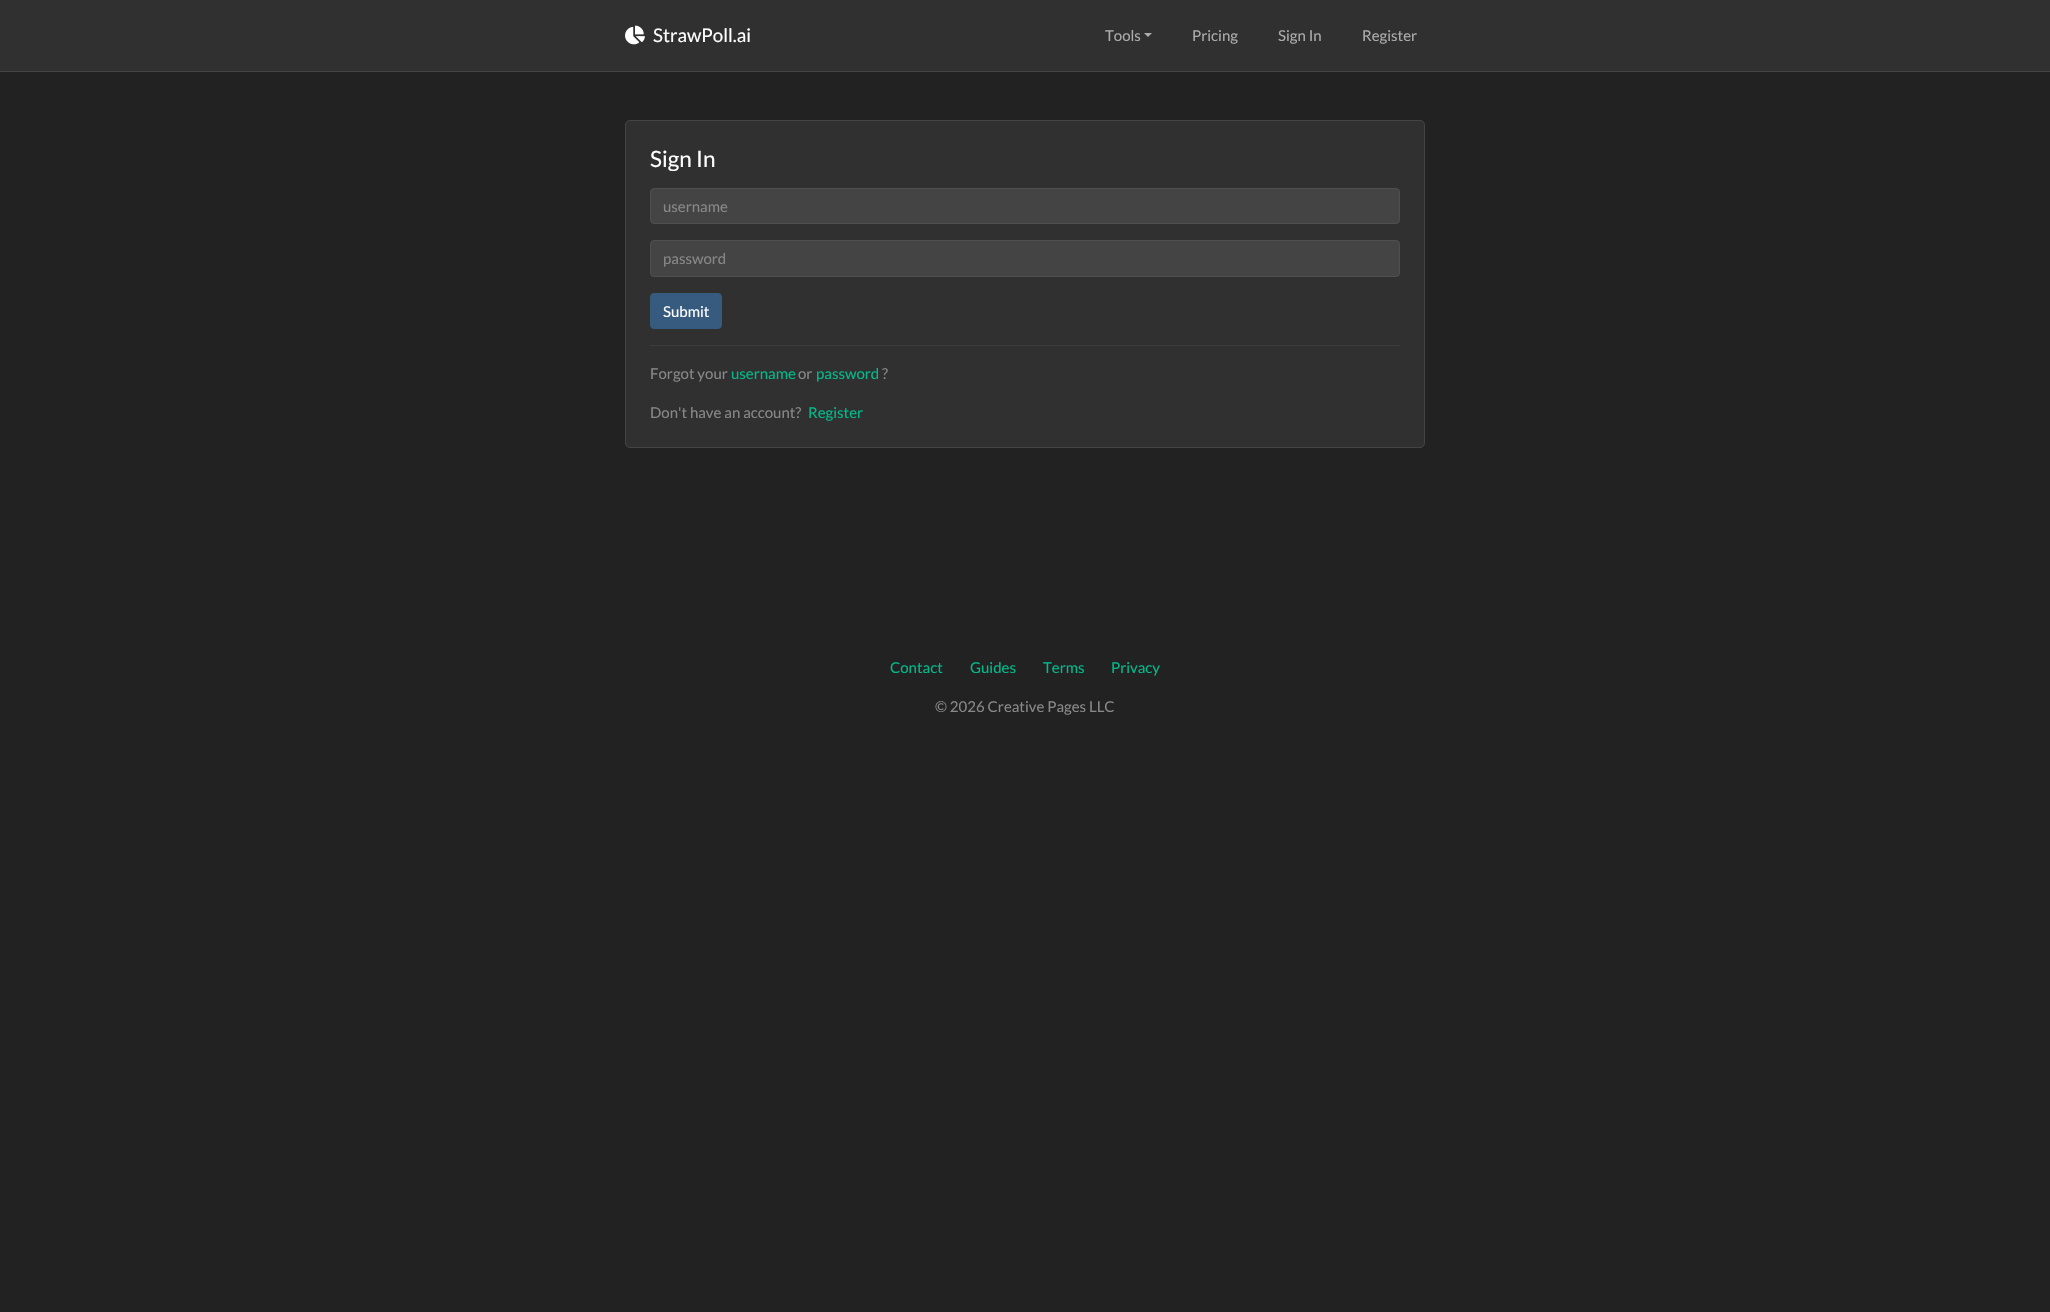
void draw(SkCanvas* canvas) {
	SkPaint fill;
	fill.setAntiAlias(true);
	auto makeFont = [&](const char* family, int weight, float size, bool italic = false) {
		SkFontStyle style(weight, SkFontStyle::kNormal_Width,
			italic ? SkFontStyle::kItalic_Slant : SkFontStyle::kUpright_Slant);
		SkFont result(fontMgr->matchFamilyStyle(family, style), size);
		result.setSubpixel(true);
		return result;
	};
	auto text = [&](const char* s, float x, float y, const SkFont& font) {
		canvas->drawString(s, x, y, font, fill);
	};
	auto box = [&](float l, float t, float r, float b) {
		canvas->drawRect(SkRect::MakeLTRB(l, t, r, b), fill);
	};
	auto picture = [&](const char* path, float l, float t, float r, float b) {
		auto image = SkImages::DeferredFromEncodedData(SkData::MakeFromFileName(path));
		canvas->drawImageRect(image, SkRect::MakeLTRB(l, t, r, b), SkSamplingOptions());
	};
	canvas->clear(0xFF222222);
	fill.setColor(0xFF303030);
	box(0, 0, 2050, 71);
	fill.setColor(0xFF444444);
	box(0, 71, 2050, 72);
	picture("image0.png", 625, 25, 645, 45);
	fill.setColor(0xFFACACAC);
	canvas->drawPath(SkPathBuilder().moveTo(1144, 33).lineTo(1152, 33).lineTo(1148, 37).close().detach(), fill);
	fill.setColor(0xFF303030);
	canvas->drawRoundRect(SkRect::MakeLTRB(625.5f, 120.5f, 1424.5f, 447.5f), 4.5f, 4.5f, fill);
	fill.setStyle(SkPaint::kStroke_Style);
	fill.setStrokeWidth(1);
	fill.setColor(0xFF444444);
	canvas->drawRoundRect(SkRect::MakeLTRB(625.5f, 120.5f, 1424.5f, 447.5f), 4.5f, 4.5f, fill);
	fill.setStyle(SkPaint::kFill_Style);
	canvas->drawRoundRect(SkRect::MakeLTRB(650.5f, 188.5f, 1399.5f, 223.5f), 3.5f, 3.5f, fill);
	fill.setStyle(SkPaint::kStroke_Style);
	fill.setColor(0xFF4F4F4F);
	canvas->drawRoundRect(SkRect::MakeLTRB(650.5f, 188.5f, 1399.5f, 223.5f), 3.5f, 3.5f, fill);
	fill.setStyle(SkPaint::kFill_Style);
	fill.setColor(0xFF444444);
	canvas->drawRoundRect(SkRect::MakeLTRB(650.5f, 240.5f, 1399.5f, 276.5f), 3.5f, 3.5f, fill);
	fill.setStyle(SkPaint::kStroke_Style);
	fill.setColor(0xFF4F4F4F);
	canvas->drawRoundRect(SkRect::MakeLTRB(650.5f, 240.5f, 1399.5f, 276.5f), 3.5f, 3.5f, fill);
	fill.setStyle(SkPaint::kFill_Style);
	fill.setColor(0xFF375A7F);
	canvas->drawRoundRect(SkRect::MakeLTRB(650.5f, 293.5f, 721.5f, 328.5f), 3.5f, 3.5f, fill);
	fill.setStyle(SkPaint::kStroke_Style);
	canvas->drawRoundRect(SkRect::MakeLTRB(650.5f, 293.5f, 721.5f, 328.5f), 3.5f, 3.5f, fill);
	fill.setStyle(SkPaint::kFill_Style);
	fill.setColor(0xFF3D3D3D);
	box(650, 345, 1400, 346);
	auto font1 = makeFont("Lato", 400, 18.75f);
	fill.setColor(0xFFFFFFFF);
	text("StrawPoll.ai", 653, 42, font1);
	auto font2 = makeFont("Lato", 400, 15);
	fill.setColor(0xFFACACAC);
	text("Tools", 1105, 41, font2);
	text("Pricing", 1192, 41, font2);
	text("Sign In", 1278, 41, font2);
	text("Register", 1362, 41, font2);
	auto font3 = makeFont("Lato", 400, 22.5f);
	fill.setColor(0xFFFFFFFF);
	text("Sign In", 650, 167, font3);
	fill.setColor(0xFF888888);
	text("username", 663, 212, font2);
	text("password", 663, 264, font2);
	fill.setColor(0xFFFFFFFF);
	text("Submit", 663, 317, font2);
	fill.setColor(0xFF888888);
	text("Forgot your", 650, 379, font2);
	fill.setColor(0xFF00BC8C);
	text("username", 731, 379, font2);
	fill.setColor(0xFF888888);
	text("or", 798, 379, font2);
	fill.setColor(0xFF00BC8C);
	text("password", 816, 379, font2);
	fill.setColor(0xFF888888);
	text("?", 882, 379, font2);
	text("Don't have an account?", 650, 418, font2);
	fill.setColor(0xFF00BC8C);
	text("Register", 808, 418, font2);
	text("Contact", 890, 673, font2);
	text("Guides", 970, 673, font2);
	text("Terms", 1043, 673, font2);
	text("Privacy", 1111, 673, font2);
	fill.setColor(0xFF888888);
	text("© 2026 Creative Pages LLC", 935, 712, font2);
}
